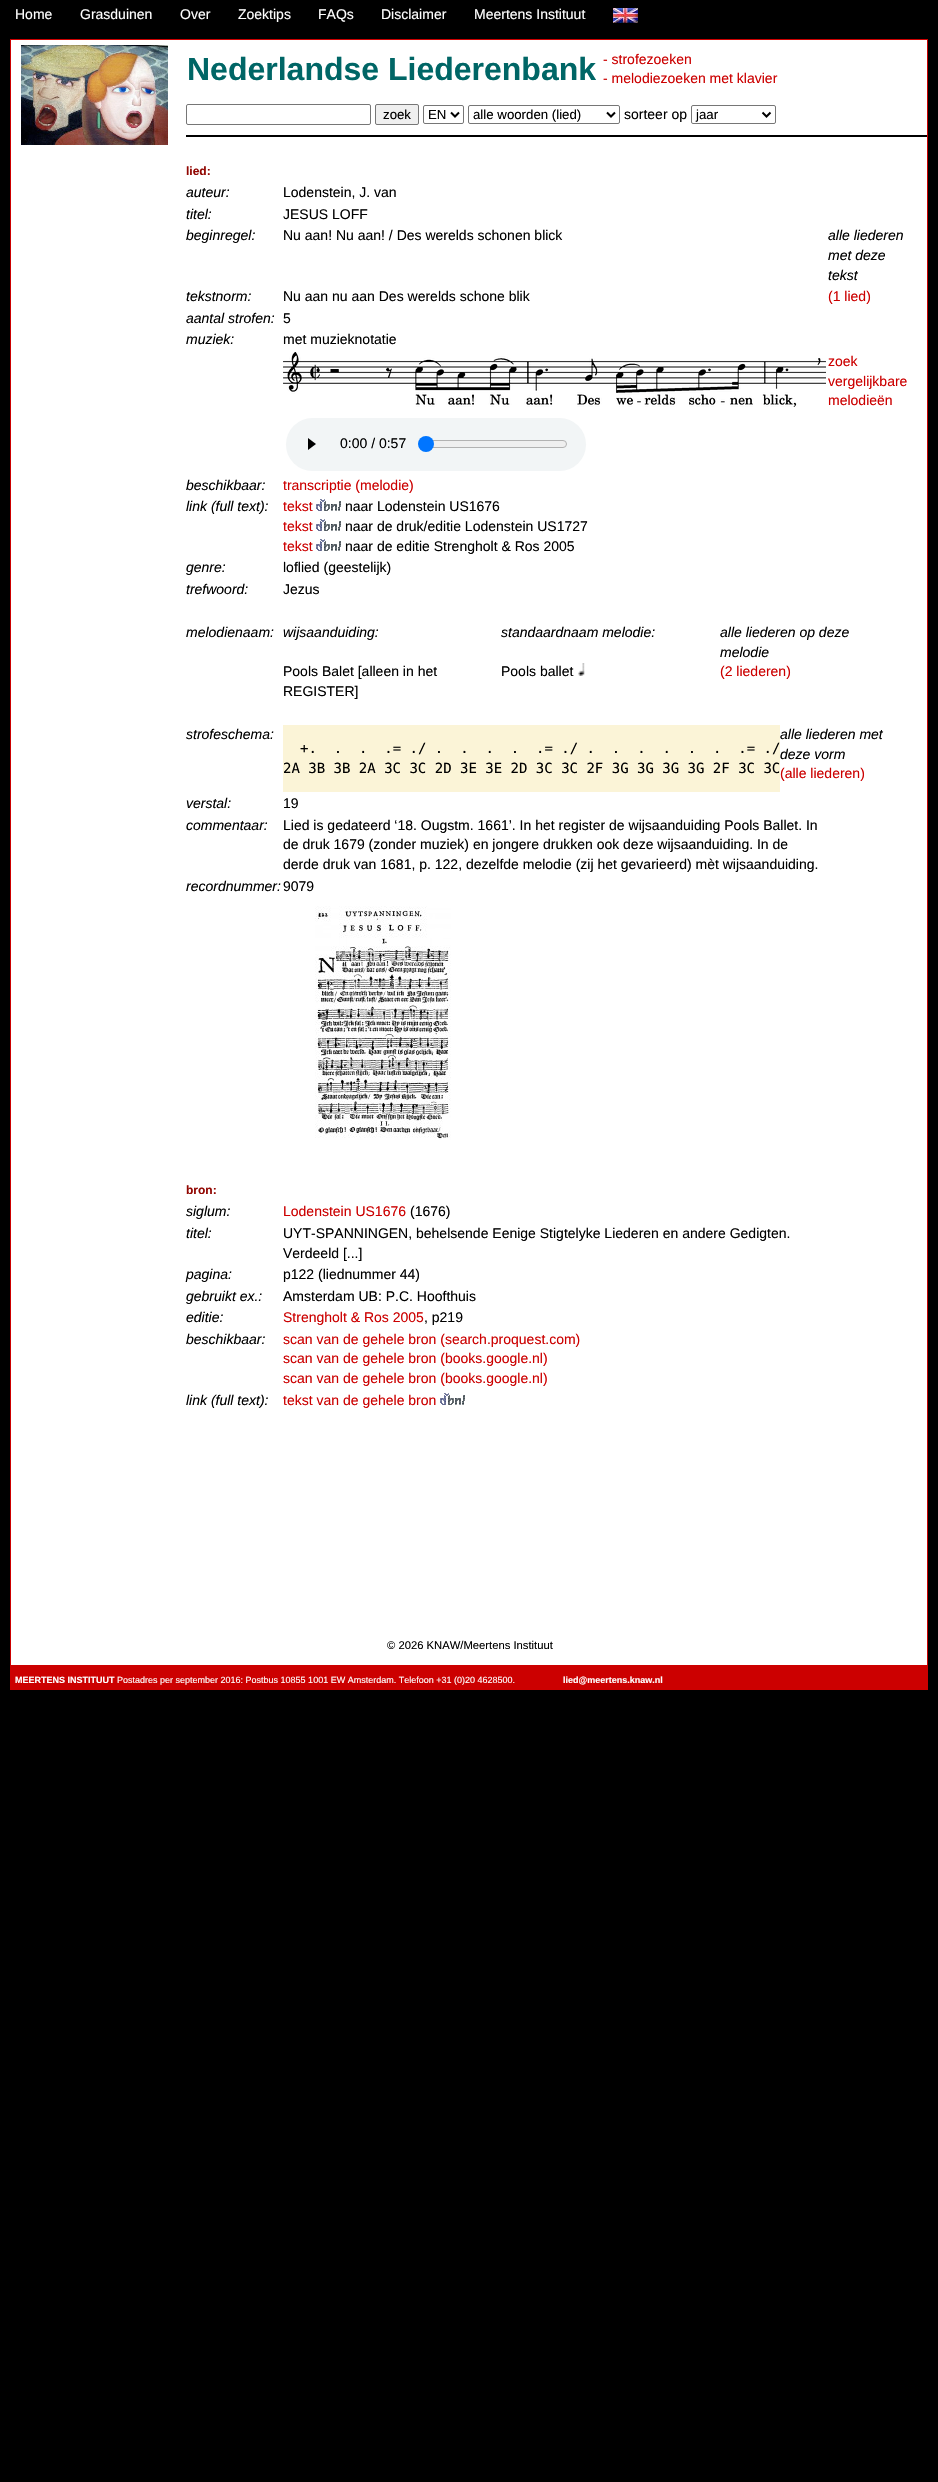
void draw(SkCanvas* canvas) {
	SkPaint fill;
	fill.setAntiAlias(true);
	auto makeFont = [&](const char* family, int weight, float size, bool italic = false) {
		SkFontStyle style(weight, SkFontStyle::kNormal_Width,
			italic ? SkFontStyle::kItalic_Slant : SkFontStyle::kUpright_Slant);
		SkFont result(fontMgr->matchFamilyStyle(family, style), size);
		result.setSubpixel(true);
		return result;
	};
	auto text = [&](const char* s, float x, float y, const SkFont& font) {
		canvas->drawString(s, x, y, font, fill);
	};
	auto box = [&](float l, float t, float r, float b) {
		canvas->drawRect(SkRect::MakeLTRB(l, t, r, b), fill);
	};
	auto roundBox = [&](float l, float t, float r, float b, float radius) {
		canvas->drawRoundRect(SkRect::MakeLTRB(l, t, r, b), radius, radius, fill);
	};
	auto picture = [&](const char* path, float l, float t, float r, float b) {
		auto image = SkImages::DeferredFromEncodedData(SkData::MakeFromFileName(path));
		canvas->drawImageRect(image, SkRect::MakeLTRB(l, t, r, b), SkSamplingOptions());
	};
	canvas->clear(0xFF000000);
	picture("image0.png", 613, 8, 638, 23);
	fill.setColor(0xFFFFFFFF);
	canvas->drawRect(SkRect::MakeLTRB(10.5f, 39.5f, 927.5f, 1665.5f), fill);
	fill.setStyle(SkPaint::kStroke_Style);
	fill.setStrokeWidth(1);
	fill.setColor(0xFFCC0000);
	canvas->drawRect(SkRect::MakeLTRB(10.5f, 39.5f, 927.5f, 1665.5f), fill);
	picture("image1.png", 21, 45, 168, 145);
	fill.setStyle(SkPaint::kFill_Style);
	fill.setColor(0xFF000000);
	box(186, 135, 927, 137);
	fill.setStyle(SkPaint::kStroke_Style);
	fill.setColor(0xFF767676);
	canvas->drawRoundRect(SkRect::MakeLTRB(186.5f, 104.5f, 370.5f, 124.5f), 1.5f, 1.5f, fill);
	fill.setStyle(SkPaint::kFill_Style);
	fill.setColor(0xFFEFEFEF);
	canvas->drawRoundRect(SkRect::MakeLTRB(375.5f, 104.5f, 418.5f, 124.5f), 1.5f, 1.5f, fill);
	fill.setStyle(SkPaint::kStroke_Style);
	fill.setColor(0xFF767676);
	canvas->drawRoundRect(SkRect::MakeLTRB(375.5f, 104.5f, 418.5f, 124.5f), 1.5f, 1.5f, fill);
	canvas->drawRoundRect(SkRect::MakeLTRB(423.5f, 105.5f, 463.5f, 123.5f), 1.5f, 1.5f, fill);
	fill.setStrokeWidth(2);
	fill.setColor(0xFF000000);
	canvas->drawPath(SkPathBuilder().moveTo(451, 112.5f).lineTo(455, 116.5f).lineTo(459, 112.5f).detach(), fill);
	fill.setStrokeWidth(1);
	fill.setColor(0xFF767676);
	canvas->drawRoundRect(SkRect::MakeLTRB(468.5f, 105.5f, 619.5f, 123.5f), 1.5f, 1.5f, fill);
	fill.setStrokeWidth(2);
	fill.setColor(0xFF000000);
	canvas->drawPath(SkPathBuilder().moveTo(607, 112.5f).lineTo(611, 116.5f).lineTo(615, 112.5f).detach(), fill);
	fill.setStrokeWidth(1);
	fill.setColor(0xFF767676);
	canvas->drawRoundRect(SkRect::MakeLTRB(691.5f, 105.5f, 775.5f, 123.5f), 1.5f, 1.5f, fill);
	fill.setStrokeWidth(2);
	fill.setColor(0xFF000000);
	canvas->drawPath(SkPathBuilder().moveTo(762.5f, 112.5f).lineTo(766.5f, 116.5f).lineTo(770.5f, 112.5f).detach(), fill);
	picture("image2.png", 283, 352, 826, 407);
	fill.setStyle(SkPaint::kFill_Style);
	fill.setColor(0xFFF2F5F6);
	roundBox(286, 418, 586, 471, 26.5f);
	fill.setColor(0xFF000000);
	canvas->drawPath(SkPathBuilder().moveTo(316, 444).lineTo(308, 450).lineTo(308, 438).close().detach(), fill);
	fill.setColor(0xFFEFEFEF);
	canvas->drawRoundRect(SkRect::MakeLTRB(419.5f, 440.5f, 566.5f, 447.5f), 3.5f, 3.5f, fill);
	fill.setStyle(SkPaint::kStroke_Style);
	fill.setStrokeWidth(1);
	fill.setColor(0xFFB2B2B2);
	canvas->drawRoundRect(SkRect::MakeLTRB(419.5f, 440.5f, 566.5f, 447.5f), 3.5f, 3.5f, fill);
	fill.setStyle(SkPaint::kFill_Style);
	fill.setColor(0xFF0075FF);
	canvas->drawCircle(426, 444, 8, fill);
	picture("image3.png", 316, 499, 341, 511);
	picture("image3.png", 316, 519, 341, 531);
	picture("image3.png", 316, 539, 341, 551);
	picture("image4.png", 578, 663, 585, 676);
	fill.setColor(0xFFFBF4D7);
	box(283, 725, 780, 792);
	picture("image5.png", 315, 906, 451, 1140);
	picture("image3.png", 440, 1393, 465, 1405);
	fill.setColor(0xFFCC0000);
	box(10, 1666, 928, 1690);
	auto font1 = makeFont("Liberation Sans", 400, 14);
	fill.setColor(0xFFFFFFFF);
	text("Home", 15, 19, font1);
	text("Grasduinen", 80, 19, font1);
	text("Over", 180, 19, font1);
	text("Zoektips", 238, 19, font1);
	text("FAQs", 318, 19, font1);
	text("Disclaimer", 381, 19, font1);
	text("Meertens Instituut", 474, 19, font1);
	auto font2 = makeFont("Liberation Sans", 700, 32);
	fill.setColor(0xFF006666);
	text("Nederlandse Liederenbank", 187, 80, font2);
	fill.setColor(0xFFCC0000);
	text("- strofezoeken", 603, 64, font1);
	text("- melodiezoeken met klavier", 603, 83, font1);
	auto font3 = makeFont("Liberation Sans", 400, 13.25f);
	fill.setColor(0xFF000000);
	text("zoek", 383, 119, font3);
	text("EN", 428, 119, font3);
	text("alle woorden (lied)", 473, 119, font3);
	text("sorteer op", 624, 119, font1);
	text("jaar", 696, 119, font3);
	auto font4 = makeFont("Liberation Sans", 700, 12);
	fill.setColor(0xFF920803);
	text("lied:", 186, 175, font4);
	auto font5 = makeFont("Liberation Sans", 400, 14, true);
	fill.setColor(0xFF000000);
	text("auteur:", 186, 197, font5);
	text("Lodenstein, J. van", 283, 197, font1);
	text("titel:", 186, 219, font5);
	text("JESUS LOFF", 283, 219, font1);
	text("beginregel:", 186, 240, font5);
	text("Nu aan! Nu aan! / Des werelds schonen blick", 283, 240, font1);
	text("alle liederen", 828, 240, font5);
	text("met deze", 828, 260, font5);
	text("tekst", 828, 280, font5);
	text("tekstnorm:", 186, 301, font5);
	text("Nu aan nu aan Des werelds schone blik", 283, 301, font1);
	fill.setColor(0xFFCC0000);
	text("(1 lied)", 828, 301, font1);
	fill.setColor(0xFF000000);
	text("aantal strofen:", 186, 323, font5);
	text("5", 283, 323, font1);
	text("muziek:", 186, 344, font5);
	text("met muzieknotatie", 283, 344, font1);
	fill.setColor(0xFFCC0000);
	text("zoek", 828, 366, font1);
	text("vergelijkbare", 828, 386, font1);
	text("melodieën", 828, 405, font1);
	fill.setColor(0xFF000000);
	text("0:00 / 0:57", 340, 448, font1);
	text("beschikbaar:", 186, 490, font5);
	fill.setColor(0xFFCC0000);
	text("transcriptie (melodie)", 283, 490, font1);
	fill.setColor(0xFF000000);
	text("link (full text):", 186, 511, font5);
	fill.setColor(0xFFCC0000);
	text("tekst", 283, 511, font1);
	fill.setColor(0xFF000000);
	text("naar Lodenstein US1676", 345, 511, font1);
	fill.setColor(0xFFCC0000);
	text("tekst", 283, 531, font1);
	fill.setColor(0xFF000000);
	text("naar de druk/editie Lodenstein US1727", 345, 531, font1);
	fill.setColor(0xFFCC0000);
	text("tekst", 283, 551, font1);
	fill.setColor(0xFF000000);
	text("naar de editie Strengholt & Ros 2005", 345, 551, font1);
	text("genre:", 186, 572, font5);
	text("loflied (geestelijk)", 283, 572, font1);
	text("trefwoord:", 186, 594, font5);
	text("Jezus", 283, 594, font1);
	text("melodienaam:", 186, 637, font5);
	text("wijsaanduiding:", 283, 637, font5);
	text("standaardnaam melodie:", 501, 637, font5);
	text("alle liederen op deze", 720, 637, font5);
	text("melodie", 720, 657, font5);
	text("Pools Balet [alleen in het", 283, 676, font1);
	text("REGISTER]", 283, 696, font1);
	text("Pools ballet", 501, 676, font1);
	fill.setColor(0xFFCC0000);
	text("(2 liederen)", 720, 676, font1);
	fill.setColor(0xFF000000);
	text("strofeschema:", 186, 739, font5);
	auto font6 = makeFont("DejaVu Sans Mono", 400, 14);
	text("+.  .  .  .= ./ .  .  .  .  .= ./ .  .  .  .  .  .  .= ./", 300, 753, font6);
	text("2A 3B 3B 2A 3C 3C 2D 3E 3E 2D 3C 3C 2F 3G 3G 3G 3G 2F 3C 3C", 283, 773, font6);
	text("alle liederen met", 780, 739, font5);
	text("deze vorm", 780, 759, font5);
	fill.setColor(0xFFCC0000);
	text("(alle liederen)", 780, 778, font1);
	fill.setColor(0xFF000000);
	text("verstal:", 186, 808, font5);
	text("19", 283, 808, font1);
	text("commentaar:", 186, 830, font5);
	text("Lied is gedateerd ‘18. Ougstm. 1661’. In het register de wijsaanduiding Pools Ballet. In", 283, 830, font1);
	text("de druk 1679 (zonder muziek) en jongere drukken ook deze wijsaanduiding. In de", 283, 849, font1);
	text("derde druk van 1681, p. 122, dezelfde melodie (zij het gevarieerd) mèt wijsaanduiding.", 283, 869, font1);
	text("recordnummer:", 186, 891, font5);
	text("9079", 283, 891, font1);
	fill.setColor(0xFF920803);
	text("bron:", 186, 1194, font4);
	fill.setColor(0xFF000000);
	text("siglum:", 186, 1216, font5);
	fill.setColor(0xFFCC0000);
	text("Lodenstein US1676", 283, 1216, font1);
	fill.setColor(0xFF000000);
	text("(1676)", 410, 1216, font1);
	text("titel:", 186, 1238, font5);
	text("UYT-SPANNINGEN, behelsende Eenige Stigtelyke Liederen en andere Gedigten.", 283, 1238, font1);
	text("Verdeeld [...]", 283, 1258, font1);
	text("pagina:", 186, 1279, font5);
	text("p122 (liednummer 44)", 283, 1279, font1);
	text("gebruikt ex.:", 186, 1301, font5);
	text("Amsterdam UB: P.C. Hoofthuis", 283, 1301, font1);
	text("editie:", 186, 1322, font5);
	fill.setColor(0xFFCC0000);
	text("Strengholt & Ros 2005", 283, 1322, font1);
	fill.setColor(0xFF000000);
	text(", p219", 424, 1322, font1);
	text("beschikbaar:", 186, 1344, font5);
	fill.setColor(0xFFCC0000);
	text("scan van de gehele bron (search.proquest.com)", 283, 1344, font1);
	text("scan van de gehele bron (books.google.nl)", 283, 1363, font1);
	text("scan van de gehele bron (books.google.nl)", 283, 1383, font1);
	fill.setColor(0xFF000000);
	text("link (full text):", 186, 1405, font5);
	fill.setColor(0xFFCC0000);
	text("tekst van de gehele bron", 283, 1405, font1);
	auto font7 = makeFont("Liberation Sans", 400, 11.25f);
	fill.setColor(0xFF000000);
	text("© 2026 KNAW/Meertens Instituut", 387, 1649, font7);
	auto font8 = makeFont("Liberation Sans", 700, 9);
	fill.setColor(0xFFFFFFFF);
	text("MEERTENS INSTITUUT", 15, 1683, font8);
	auto font9 = makeFont("Liberation Sans", 400, 9);
	text("Postadres per september 2016: Postbus 10855 1001 EW Amsterdam. Telefoon +31 (0)20 4628500.", 117, 1683, font9);
	text("lied@meertens.knaw.nl", 563, 1683, font8);
}
